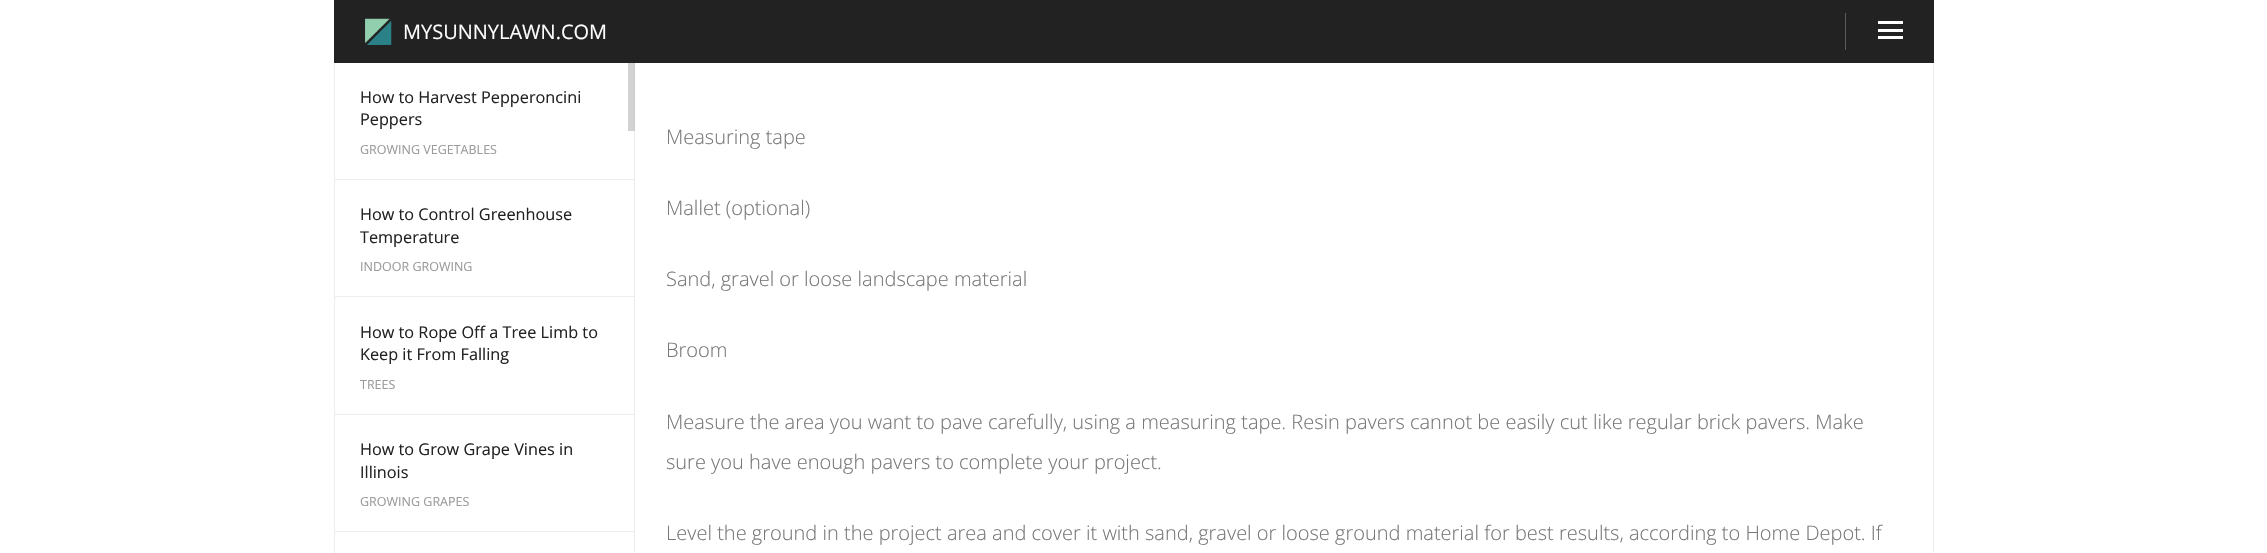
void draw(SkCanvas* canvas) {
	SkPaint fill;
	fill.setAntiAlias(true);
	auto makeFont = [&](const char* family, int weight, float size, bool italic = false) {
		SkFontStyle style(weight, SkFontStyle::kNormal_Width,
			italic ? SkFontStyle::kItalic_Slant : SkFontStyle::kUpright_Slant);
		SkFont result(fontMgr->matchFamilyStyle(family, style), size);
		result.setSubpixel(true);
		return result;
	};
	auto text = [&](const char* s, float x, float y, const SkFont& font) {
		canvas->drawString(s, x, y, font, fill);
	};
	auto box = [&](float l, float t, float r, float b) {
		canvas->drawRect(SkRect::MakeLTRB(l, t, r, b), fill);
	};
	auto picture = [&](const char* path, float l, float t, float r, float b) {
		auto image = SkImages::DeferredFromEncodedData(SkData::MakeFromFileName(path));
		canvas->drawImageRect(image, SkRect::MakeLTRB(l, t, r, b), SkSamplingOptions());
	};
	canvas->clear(0xFFFFFFFF);
	fill.setColor(0xFFD2D2D2);
	box(628, 63, 634, 131);
	fill.setColor(0xFF222222);
	box(334, 0, 1934, 63);
	picture("image0.png", 365, 18, 392, 45);
	fill.setColor(0xFF5B5B5B);
	box(1845, 13, 1846, 50);
	fill.setColor(0xFFFFFFFF);
	box(1878, 21, 1903, 24);
	box(1878, 29, 1903, 32);
	box(1878, 36, 1903, 39);
	fill.setColor(0xFFEDEDED);
	box(334, 63, 335, 553);
	box(634, 131, 635, 553);
	fill.setColor(0xFFCCCCCC);
	box(634, 63, 635, 131);
	fill.setColor(0xFFEDEDED);
	box(335, 179, 635, 180);
	box(335, 296, 635, 297);
	box(335, 414, 635, 415);
	box(335, 531, 635, 532);
	box(1933, 63, 1934, 553);
	auto font1 = makeFont("Open Sans", 400, 20);
	fill.setColor(0xFFFFFFFF);
	text("MYSUNNYLAWN.COM", 403, 39, font1);
	auto font2 = makeFont("Open Sans", 400, 16.25f);
	fill.setColor(0xFF222222);
	text("How to Harvest Pepperoncini", 360, 103, font2);
	text("Peppers", 360, 125, font2);
	auto font3 = makeFont("Open Sans", 400, 12.5f);
	fill.setColor(0xFF9B9B9B);
	text("GROWING VEGETABLES", 360, 154, font3);
	fill.setColor(0xFF222222);
	text("How to Control Greenhouse", 360, 220, font2);
	text("Temperature", 360, 243, font2);
	fill.setColor(0xFF9B9B9B);
	text("INDOOR GROWING", 360, 271, font3);
	fill.setColor(0xFF222222);
	text("How to Rope Off a Tree Limb to", 360, 338, font2);
	text("Keep it From Falling", 360, 360, font2);
	fill.setColor(0xFF9B9B9B);
	text("TREES", 360, 389, font3);
	fill.setColor(0xFF222222);
	text("How to Grow Grape Vines in", 360, 455, font2);
	text("Illinois", 360, 478, font2);
	fill.setColor(0xFF9B9B9B);
	text("GROWING GRAPES", 360, 506, font3);
	auto font4 = makeFont("Open Sans", 300, 20);
	fill.setColor(0xFF777777);
	text("Measuring tape", 666, 144, font4);
	text("Mallet (optional)", 666, 215, font4);
	text("Sand, gravel or loose landscape material", 666, 286, font4);
	text("Broom", 666, 357, font4);
	text("Measure the area you want to pave carefully, using a measuring tape. Resin pavers cannot be easily cut like regular brick pavers. Make", 666, 429, font4);
	text("sure you have enough pavers to complete your project.", 666, 469, font4);
	text("Level the ground in the project area and cover it with sand, gravel or loose ground material for best results, according to Home Depot. If", 666, 540, font4);
}
